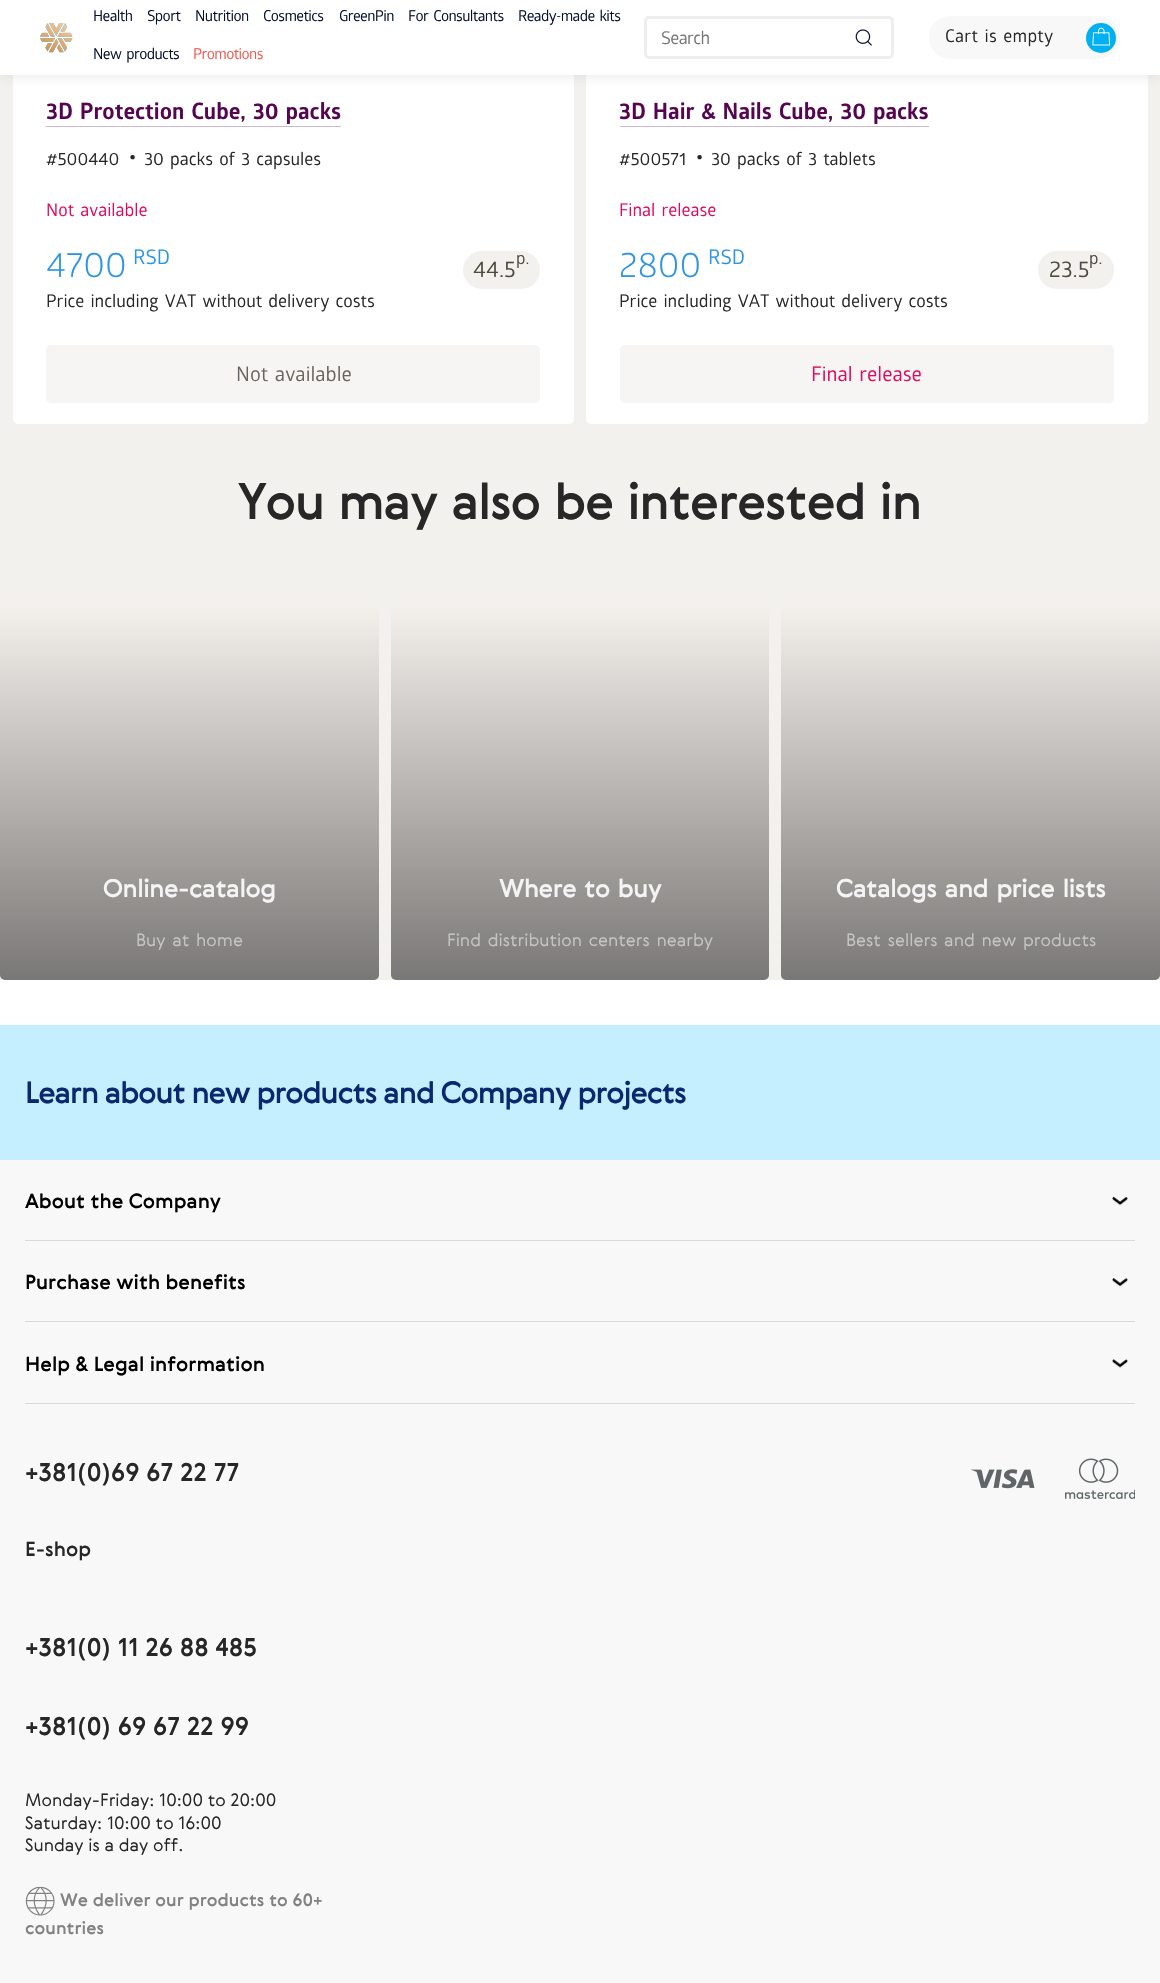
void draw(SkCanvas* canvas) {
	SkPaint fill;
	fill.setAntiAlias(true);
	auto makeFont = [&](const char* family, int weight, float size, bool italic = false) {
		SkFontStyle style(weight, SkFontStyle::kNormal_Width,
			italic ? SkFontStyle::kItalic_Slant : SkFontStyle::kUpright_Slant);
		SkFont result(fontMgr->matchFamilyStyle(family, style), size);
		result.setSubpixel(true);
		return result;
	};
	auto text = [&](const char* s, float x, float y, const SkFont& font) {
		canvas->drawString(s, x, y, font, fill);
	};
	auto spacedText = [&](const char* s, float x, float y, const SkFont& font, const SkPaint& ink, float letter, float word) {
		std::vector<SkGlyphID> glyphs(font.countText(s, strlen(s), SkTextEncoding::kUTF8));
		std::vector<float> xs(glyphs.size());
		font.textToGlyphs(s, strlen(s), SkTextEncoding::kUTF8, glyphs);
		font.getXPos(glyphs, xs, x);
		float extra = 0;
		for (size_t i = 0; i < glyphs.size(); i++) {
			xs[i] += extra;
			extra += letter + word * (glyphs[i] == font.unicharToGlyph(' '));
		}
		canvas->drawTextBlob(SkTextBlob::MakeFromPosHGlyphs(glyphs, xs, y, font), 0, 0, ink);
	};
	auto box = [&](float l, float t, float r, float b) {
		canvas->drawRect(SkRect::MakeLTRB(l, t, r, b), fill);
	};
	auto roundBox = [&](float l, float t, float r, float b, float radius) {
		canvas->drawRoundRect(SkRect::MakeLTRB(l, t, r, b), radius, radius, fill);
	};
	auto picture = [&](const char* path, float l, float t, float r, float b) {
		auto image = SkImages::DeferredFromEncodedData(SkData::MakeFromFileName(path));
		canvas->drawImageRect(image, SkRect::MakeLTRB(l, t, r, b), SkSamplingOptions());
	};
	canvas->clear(0xFFFFFFFF);
	fill.setColor(0xFFF3F1ED);
	box(0, 75, 1160, 980);
	fill.setColor(0xFFFFFFFF);
	roundBox(13, 6, 574, 424, 5);
	roundBox(586, 6, 1148, 424, 5);
	fill.setColor(0x1F6A7381);
	fill.setMaskFilter(SkMaskFilter::MakeBlur(kNormal_SkBlurStyle, 5));
	canvas->drawRect(SkRect::MakeLTRB(0, 3, 1160, 78), fill);
	fill.setMaskFilter(nullptr);
	fill.setColor(0xFFFFFFFF);
	box(0, 0, 1160, 75);
	picture("image0.png", 40, 23, 73, 53);
	fill.setStyle(SkPaint::kStroke_Style);
	fill.setStrokeWidth(3);
	fill.setColor(0xFFEEEEEE);
	canvas->drawRoundRect(SkRect::MakeLTRB(645.5f, 17.5f, 892.5f, 57.5f), 3.5f, 3.5f, fill);
	picture("image1.png", 855, 29, 872, 46);
	fill.setStyle(SkPaint::kFill_Style);
	fill.setColor(0xFFF8F8F8);
	roundBox(929, 16, 1120, 59, 21.5f);
	fill.setColor(0xFF00B0F0);
	canvas->drawCircle(1101, 38, 15, fill);
	picture("image2.png", 1092, 27, 1111, 46);
	fill.setColor(0xFFCBBACE);
	box(46, 126, 341, 127);
	fill.setColor(0xFFF3F1ED);
	roundBox(463, 251, 540, 289, 19);
	fill.setColor(0xFFF6F5F3);
	canvas->drawRoundRect(SkRect::MakeLTRB(48, 347, 538, 401), 3, 3, fill);
	fill.setStyle(SkPaint::kStroke_Style);
	fill.setStrokeWidth(4);
	canvas->drawRoundRect(SkRect::MakeLTRB(48, 347, 538, 401), 3, 3, fill);
	fill.setStyle(SkPaint::kFill_Style);
	fill.setColor(0xFFCBBACE);
	box(620, 126, 929, 127);
	fill.setColor(0xFFF3F1ED);
	roundBox(1038, 251, 1114, 289, 19);
	fill.setColor(0xFFF6F5F3);
	canvas->drawRoundRect(SkRect::MakeLTRB(622, 347, 1112, 401), 3, 3, fill);
	fill.setStyle(SkPaint::kStroke_Style);
	canvas->drawRoundRect(SkRect::MakeLTRB(622, 347, 1112, 401), 3, 3, fill);
	fill.setStyle(SkPaint::kFill_Style);
	{
		const SkColor colors[] = {0xFFF4F0EC, 0xFF7A7876};
		const float stops[] = {0, 1};
		const SkPoint ends[] = {{189, 605}, {189, 980}};
		fill.setShader(SkGradientShader::MakeLinear(ends, colors, stops, 2, SkTileMode::kClamp));
		fill.setAlpha(255);
	}
	roundBox(0, 605, 379, 980, 5);
	{
		const SkColor colors[] = {0xFFF4F0EC, 0xFF7A7876};
		const float stops[] = {0, 1};
		const SkPoint ends[] = {{580, 605}, {580, 980}};
		fill.setShader(SkGradientShader::MakeLinear(ends, colors, stops, 2, SkTileMode::kClamp));
		fill.setAlpha(255);
	}
	roundBox(391, 605, 769, 980, 5);
	{
		const SkColor colors[] = {0xFFF4F0EC, 0xFF7A7876};
		const float stops[] = {0, 1};
		const SkPoint ends[] = {{971, 605}, {971, 980}};
		fill.setShader(SkGradientShader::MakeLinear(ends, colors, stops, 2, SkTileMode::kClamp));
		fill.setAlpha(255);
	}
	roundBox(781, 605, 1160, 980, 5);
	fill.setShader(nullptr);
	fill.setColor(0xFFC5EFFF);
	box(0, 1025, 1160, 1160);
	fill.setColor(0xFFF8F8F8);
	box(0, 1160, 1160, 1983);
	fill.setColor(0xFFD9D9D9);
	box(25, 1240, 1135, 1241);
	picture("image3.png", 1112, 1196, 1128, 1206);
	box(25, 1321, 1135, 1322);
	picture("image4.png", 1112, 1278, 1128, 1287);
	box(25, 1403, 1135, 1404);
	picture("image5.png", 1112, 1359, 1128, 1368);
	picture("image6.png", 25, 1886, 55, 1916);
	picture("image7.png", 971, 1469, 1035, 1489);
	picture("image8.png", 1065, 1458, 1135, 1499);
	auto font1 = makeFont("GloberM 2", 400, 15);
	fill.setColor(0xFF06112E);
	spacedText("Health", 93, 21, font1, fill, -0.6f, 0);
	spacedText("Sport", 147, 21, font1, fill, -0.6f, 0);
	spacedText("Nutrition", 195, 21, font1, fill, -0.6f, 0);
	spacedText("Cosmetics", 263, 21, font1, fill, -0.6f, 0);
	spacedText("GreenPin", 339, 21, font1, fill, -0.6f, 0);
	spacedText("For Consultants", 408, 21, font1, fill, -0.6f, 2);
	spacedText("Ready-made kits", 518, 21, font1, fill, -0.6f, 2);
	spacedText("New products", 93, 59, font1, fill, -0.6f, 2);
	fill.setColor(0xFFF1574B);
	spacedText("Promotions", 193, 59, font1, fill, -0.6f, 0);
	auto font2 = makeFont("GloberM 2", 400, 17.5f);
	fill.setColor(0xFF757575);
	spacedText("Search", 661, 44, font2, fill, -0.6f, 0);
	fill.setColor(0xFF272727);
	spacedText("Cart is empty", 945, 42, font2, fill, 0.25f, 2);
	auto font3 = makeFont("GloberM", 700, 22.5f);
	fill.setColor(0xFF560551);
	spacedText("3D Protection Cube, 30 packs", 46, 119, font3, fill, 0, 2);
	fill.setColor(0xFF272727);
	text("#500440", 46, 165, font2);
	auto font4 = makeFont("GloberM 2", 400, 35);
	text("•", 127, 167, font4);
	spacedText("30 packs of 3 capsules", 144, 165, font2, fill, 0, 2);
	fill.setColor(0xFFE1085D);
	spacedText("Not available", 46, 216, font2, fill, 0, 2);
	auto font5 = makeFont("GloberM", 400, 35);
	fill.setColor(0xFF2A94E5);
	text("4700", 46, 277, font5);
	auto font6 = makeFont("GloberM 2", 400, 20);
	text("RSD", 133, 264, font6);
	auto font7 = makeFont("GloberM 2", 400, 22.5f);
	fill.setColor(0xFF4F4A40);
	text("44.5", 473, 277, font7);
	auto font8 = makeFont("GloberM 2", 400, 17);
	text("p.", 516, 264, font8);
	fill.setColor(0xFF272727);
	spacedText("Price including VAT without delivery costs", 46, 307, font2, fill, 0, 2);
	fill.setColor(0xFF69655C);
	spacedText("Not available", 236, 381, font6, fill, 0, 2);
	fill.setColor(0xFF560551);
	spacedText("3D Hair & Nails Cube, 30 packs", 619, 119, font3, fill, 0, 2);
	fill.setColor(0xFF272727);
	text("#500571", 619, 165, font2);
	text("•", 694, 167, font4);
	spacedText("30 packs of 3 tablets", 711, 165, font2, fill, 0, 2);
	fill.setColor(0xFFE1085D);
	spacedText("Final release", 619, 216, font2, fill, 0, 2);
	fill.setColor(0xFF2A94E5);
	text("2800", 619, 277, font5);
	text("RSD", 708, 264, font6);
	fill.setColor(0xFF4F4A40);
	text("23.5", 1049, 277, font7);
	text("p.", 1089, 264, font8);
	fill.setColor(0xFF272727);
	spacedText("Price including VAT without delivery costs", 619, 307, font2, fill, 0, 2);
	fill.setColor(0xFFE1085D);
	spacedText("Final release", 811, 381, font6, fill, 0, 2);
	auto font9 = makeFont("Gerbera", 500, 50);
	fill.setColor(0xFF272727);
	spacedText("You may also be interested in", 238, 519, font9, fill, -1.25f, 2);
	auto font10 = makeFont("Gerbera", 500, 25);
	fill.setColor(0xFFF5F4F4);
	spacedText("Online-catalog", 103, 897, font10, fill, -0.6f, 0);
	auto font11 = makeFont("Gerbera", 300, 17.5f);
	fill.setColor(0xFFC4C4C4);
	spacedText("Buy at home", 136, 946, font11, fill, 0, 2);
	fill.setColor(0xFFF5F4F4);
	spacedText("Where to buy", 499, 897, font10, fill, -0.6f, 2);
	fill.setColor(0xFFC4C4C4);
	spacedText("Find distribution centers nearby", 447, 946, font11, fill, 0, 2);
	fill.setColor(0xFFF5F4F4);
	spacedText("Catalogs and price lists", 836, 897, font10, fill, -0.6f, 2);
	fill.setColor(0xFFC4C4C4);
	spacedText("Best sellers and new products", 846, 946, font11, fill, 0, 2);
	auto font12 = makeFont("Gerbera", 500, 30);
	fill.setColor(0xFF0B276F);
	spacedText("Learn about new products and Company projects", 25, 1103, font12, fill, -1.25f, 0);
	auto font13 = makeFont("Gerbera", 500, 20);
	fill.setColor(0xFF000000);
	text("About the Company", 25, 1208, font13);
	text("Purchase with benefits", 25, 1289, font13);
	text("Help & Legal information", 25, 1371, font13);
	fill.setColor(0xFF272727);
	text("+381(0)69 67 22 77", 25, 1481, font10);
	text("E-shop", 25, 1556, font13);
	text("+381(0) 11 26 88 485", 25, 1656, font10);
	text("+381(0) 69 67 22 99", 25, 1735, font10);
	text("Monday-Friday: 10:00 to 20:00", 25, 1806, font11);
	text("Saturday: 10:00 to 16:00", 25, 1829, font11);
	text("Sunday is a day off.", 25, 1851, font11);
	auto font14 = makeFont("Gerbera", 500, 17.5f);
	fill.setColor(0xFF828282);
	text("We deliver our products to 60+", 60, 1906, font14);
	text("countries", 25, 1934, font14);
}
